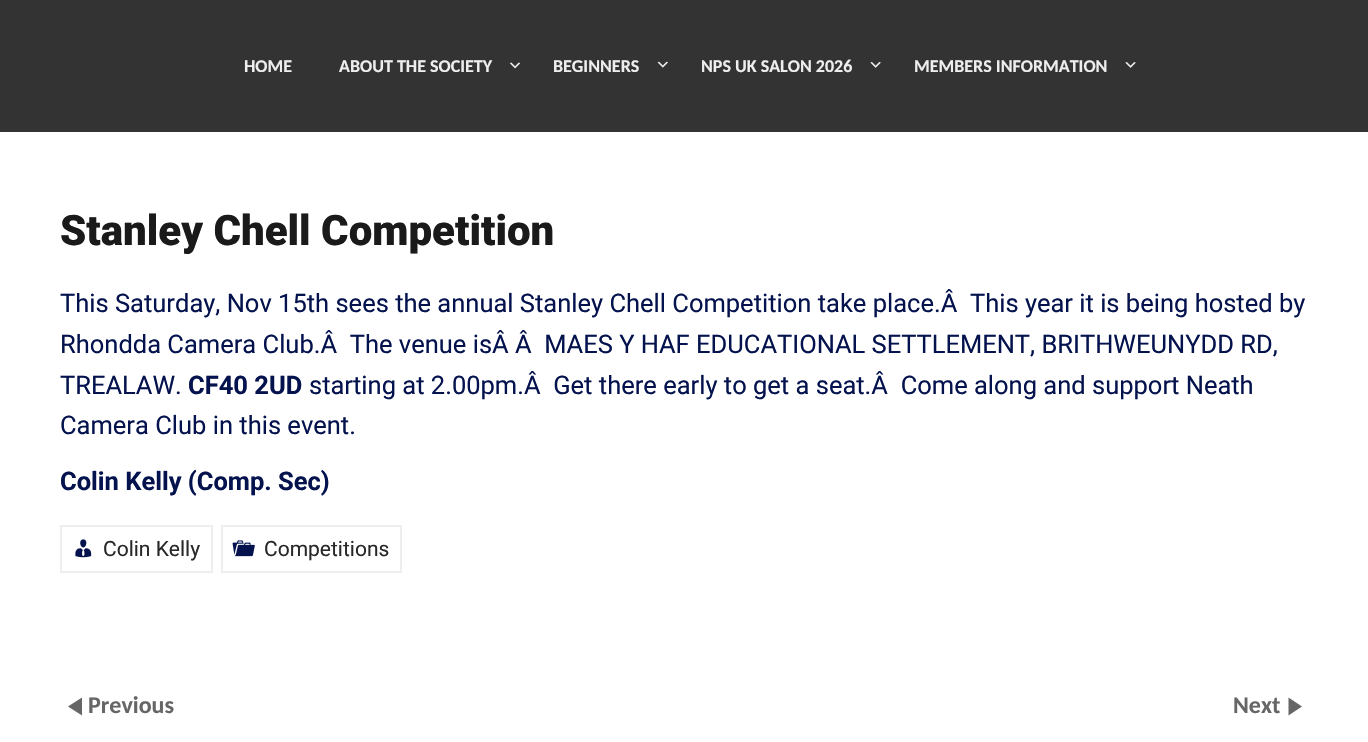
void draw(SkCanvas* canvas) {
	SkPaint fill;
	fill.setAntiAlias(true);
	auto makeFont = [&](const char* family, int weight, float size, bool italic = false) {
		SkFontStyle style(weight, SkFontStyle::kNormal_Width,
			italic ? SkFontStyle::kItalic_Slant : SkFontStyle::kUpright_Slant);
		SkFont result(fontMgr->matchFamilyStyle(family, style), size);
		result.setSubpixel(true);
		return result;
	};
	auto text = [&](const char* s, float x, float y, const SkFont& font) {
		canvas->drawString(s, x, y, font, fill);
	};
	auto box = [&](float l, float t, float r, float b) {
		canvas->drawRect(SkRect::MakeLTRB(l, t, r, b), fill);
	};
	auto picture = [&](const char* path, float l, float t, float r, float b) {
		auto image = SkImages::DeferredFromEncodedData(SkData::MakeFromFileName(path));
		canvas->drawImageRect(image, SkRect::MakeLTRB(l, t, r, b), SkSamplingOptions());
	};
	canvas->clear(0xFFFFFFFF);
	fill.setColor(0xFF333333);
	box(0, 0, 1368, 132);
	picture("image0.png", 509, 62, 521, 69);
	picture("image1.png", 657, 61, 668, 68);
	picture("image2.png", 870, 62, 881, 68);
	picture("image3.png", 1125, 62, 1136, 68);
	fill.setStyle(SkPaint::kStroke_Style);
	fill.setStrokeWidth(2);
	fill.setColor(0xFFEEEEEE);
	canvas->drawRect(SkRect::MakeLTRB(61, 526, 212, 572), fill);
	picture("image4.png", 75, 539, 92, 558);
	canvas->drawRect(SkRect::MakeLTRB(222, 526, 401, 572), fill);
	picture("image5.png", 232, 540, 255, 557);
	fill.setStyle(SkPaint::kFill_Style);
	fill.setColor(0xFF666666);
	canvas->drawPath(SkPathBuilder().moveTo(82, 715.5f).lineTo(68, 706.5f).lineTo(82, 697.5f).close().detach(), fill);
	canvas->drawPath(SkPathBuilder().moveTo(1288.5f, 697.5f).lineTo(1302, 706.5f).lineTo(1288.5f, 715.5f).close().detach(), fill);
	auto font1 = makeFont("Carlito", 700, 18);
	fill.setColor(0xFFEEEEEE);
	text("HOME", 244, 72, font1);
	text("ABOUT THE SOCIETY", 339, 72, font1);
	text("BEGINNERS", 553, 72, font1);
	text("NPS UK SALON 2026", 701, 72, font1);
	text("MEMBERS INFORMATION", 914, 72, font1);
	auto font2 = makeFont("Roboto", 900, 42);
	fill.setColor(0xFF1A1A1A);
	text("Stanley Chell Competition", 60, 245, font2);
	auto font3 = makeFont("Roboto", 400, 25.5f);
	fill.setColor(0xFF04134E);
	text("This Saturday, Nov 15th sees the annual Stanley Chell Competition take place.Â  This year it is being hosted by", 60, 312, font3);
	text("Rhondda Camera Club.Â  The venue isÂ Â  MAES Y HAF EDUCATIONAL SETTLEMENT, BRITHWEUNYDD RD,", 60, 353, font3);
	text("TREALAW.", 60, 394, font3);
	auto font4 = makeFont("Roboto", 700, 25.5f);
	text("CF40 2UD", 188, 394, font4);
	text("starting at 2.00pm.Â  Get there early to get a seat.Â  Come along and support Neath", 309, 394, font3);
	text("Camera Club in this event.", 60, 434, font3);
	text("Colin Kelly (Comp. Sec)", 60, 490, font4);
	auto font5 = makeFont("Roboto", 400, 21);
	fill.setColor(0xFF282828);
	text("Colin Kelly", 103, 556, font5);
	text("Competitions", 264, 556, font5);
	auto font6 = makeFont("Carlito", 700, 24);
	fill.setColor(0xFF666666);
	text("Previous", 88, 713, font6);
	text("Next", 1233, 713, font6);
}
